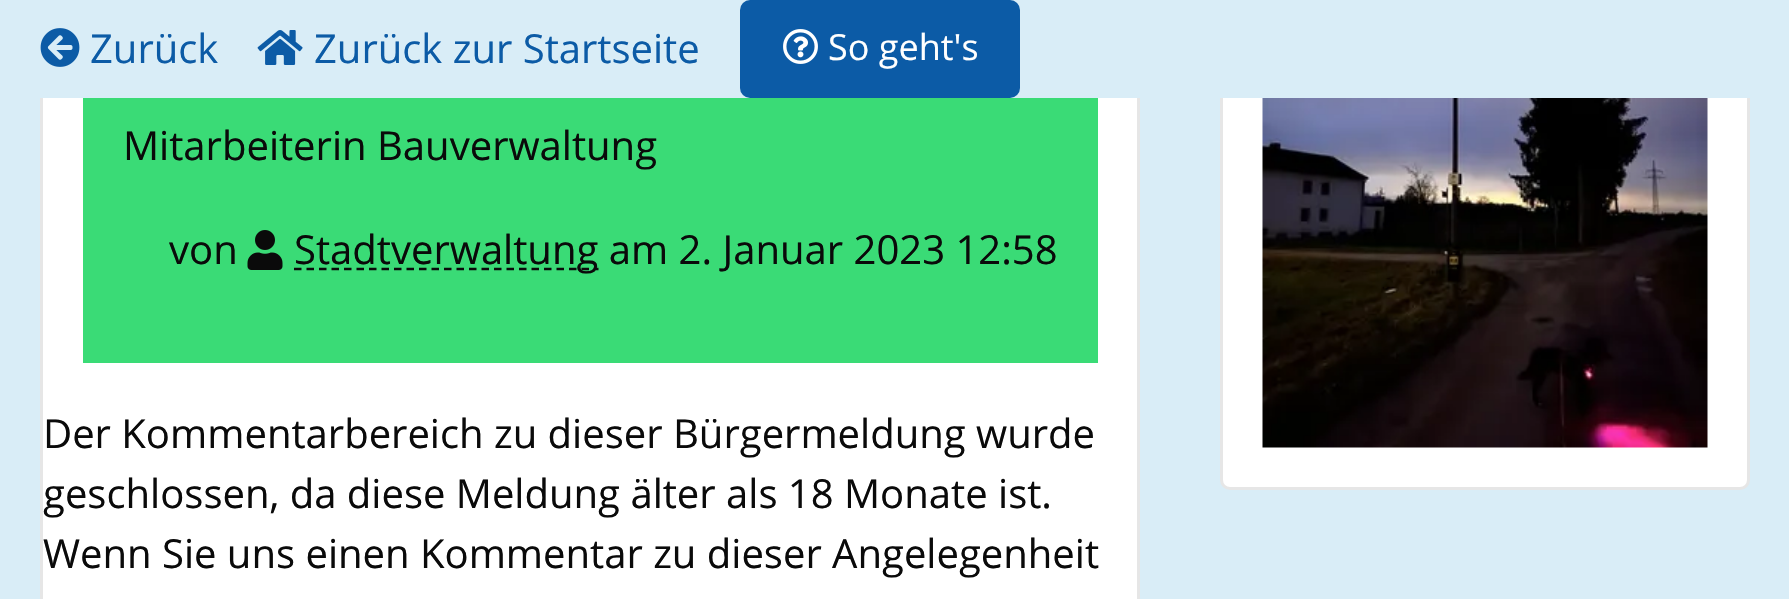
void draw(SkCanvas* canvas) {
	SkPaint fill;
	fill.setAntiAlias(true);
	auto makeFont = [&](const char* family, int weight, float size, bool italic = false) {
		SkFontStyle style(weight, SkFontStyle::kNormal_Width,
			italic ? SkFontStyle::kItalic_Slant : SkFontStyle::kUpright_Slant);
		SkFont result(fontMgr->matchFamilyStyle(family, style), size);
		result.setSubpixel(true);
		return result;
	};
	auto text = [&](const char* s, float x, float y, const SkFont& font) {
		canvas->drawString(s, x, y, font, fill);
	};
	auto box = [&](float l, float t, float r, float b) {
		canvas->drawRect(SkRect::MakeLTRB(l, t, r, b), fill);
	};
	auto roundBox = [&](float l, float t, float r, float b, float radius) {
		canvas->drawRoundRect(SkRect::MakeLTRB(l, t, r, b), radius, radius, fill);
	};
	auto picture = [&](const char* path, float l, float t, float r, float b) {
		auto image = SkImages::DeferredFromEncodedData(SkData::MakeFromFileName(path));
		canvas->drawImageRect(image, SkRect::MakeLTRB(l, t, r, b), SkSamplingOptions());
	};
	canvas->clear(0xFFD9EDF7);
	fill.setColor(0xFFFFFFFF);
	box(43, 98, 1137, 599);
	fill.setStyle(SkPaint::kStroke_Style);
	fill.setStrokeWidth(3);
	fill.setColor(0xFFE6E6E6);
	canvas->drawRect(SkRect::MakeLTRB(41.5f, -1.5f, 1138.5f, 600.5f), fill);
	fill.setStyle(SkPaint::kFill_Style);
	fill.setColor(0xFFFFFFFF);
	canvas->drawRoundRect(SkRect::MakeLTRB(1221.5f, -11.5f, 1748.5f, 488.5f), 8.5f, 8.5f, fill);
	fill.setStyle(SkPaint::kStroke_Style);
	fill.setColor(0xFFE6E6E6);
	canvas->drawRoundRect(SkRect::MakeLTRB(1221.5f, -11.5f, 1748.5f, 488.5f), 8.5f, 8.5f, fill);
	fill.setStyle(SkPaint::kFill_Style);
	fill.setColor(0xFFD9EDF7);
	box(40, 0, 1750, 98);
	picture("image0.png", 40, 28, 80, 67);
	picture("image1.png", 257, 30, 303, 65);
	fill.setColor(0xFF0C5BA6);
	roundBox(740, 0, 1020, 98, 10);
	picture("image2.png", 783, 29, 818, 64);
	fill.setColor(0xFF3ADB76);
	box(83, 98, 1098, 363);
	picture("image3.png", 247, 230, 283, 270);
	fill.setStyle(SkPaint::kStroke_Style);
	fill.setStrokeWidth(2.5f);
	fill.setColor(0xFF0A0A0A);
	fill.setPathEffect(SkDashPathEffect::Make({{7.5f, 5}}, 0));
	canvas->drawPath(SkPathBuilder().moveTo(294, 269).lineTo(598.5f, 269).detach(), fill);
	fill.setPathEffect(nullptr);
	picture("image4.png", 1262, 98, 1708, 448);
	auto font1 = makeFont("Open Sans", 400, 40);
	fill.setStyle(SkPaint::kFill_Style);
	fill.setColor(0xFF0C5BA6);
	text("Zurück", 90, 63, font1);
	text("Zurück zur Startseite", 314, 63, font1);
	auto font2 = makeFont("Open Sans", 400, 36);
	fill.setColor(0xFFFFFFFF);
	text("So geht's", 828, 60, font2);
	fill.setColor(0xFF0A0A0A);
	text("Mitarbeiterin Bauverwaltung", 123, 160, font1);
	text("von", 169, 264, font1);
	text("Stadtverwaltung am 2. Januar 2023 12:58", 294, 264, font1);
	text("Der Kommentarbereich zu dieser Bürgermeldung wurde", 43, 448, font1);
	text("geschlossen, da diese Meldung älter als 18 Monate ist.", 43, 508, font1);
	text("Wenn Sie uns einen Kommentar zu dieser Angelegenheit", 43, 568, font1);
}
